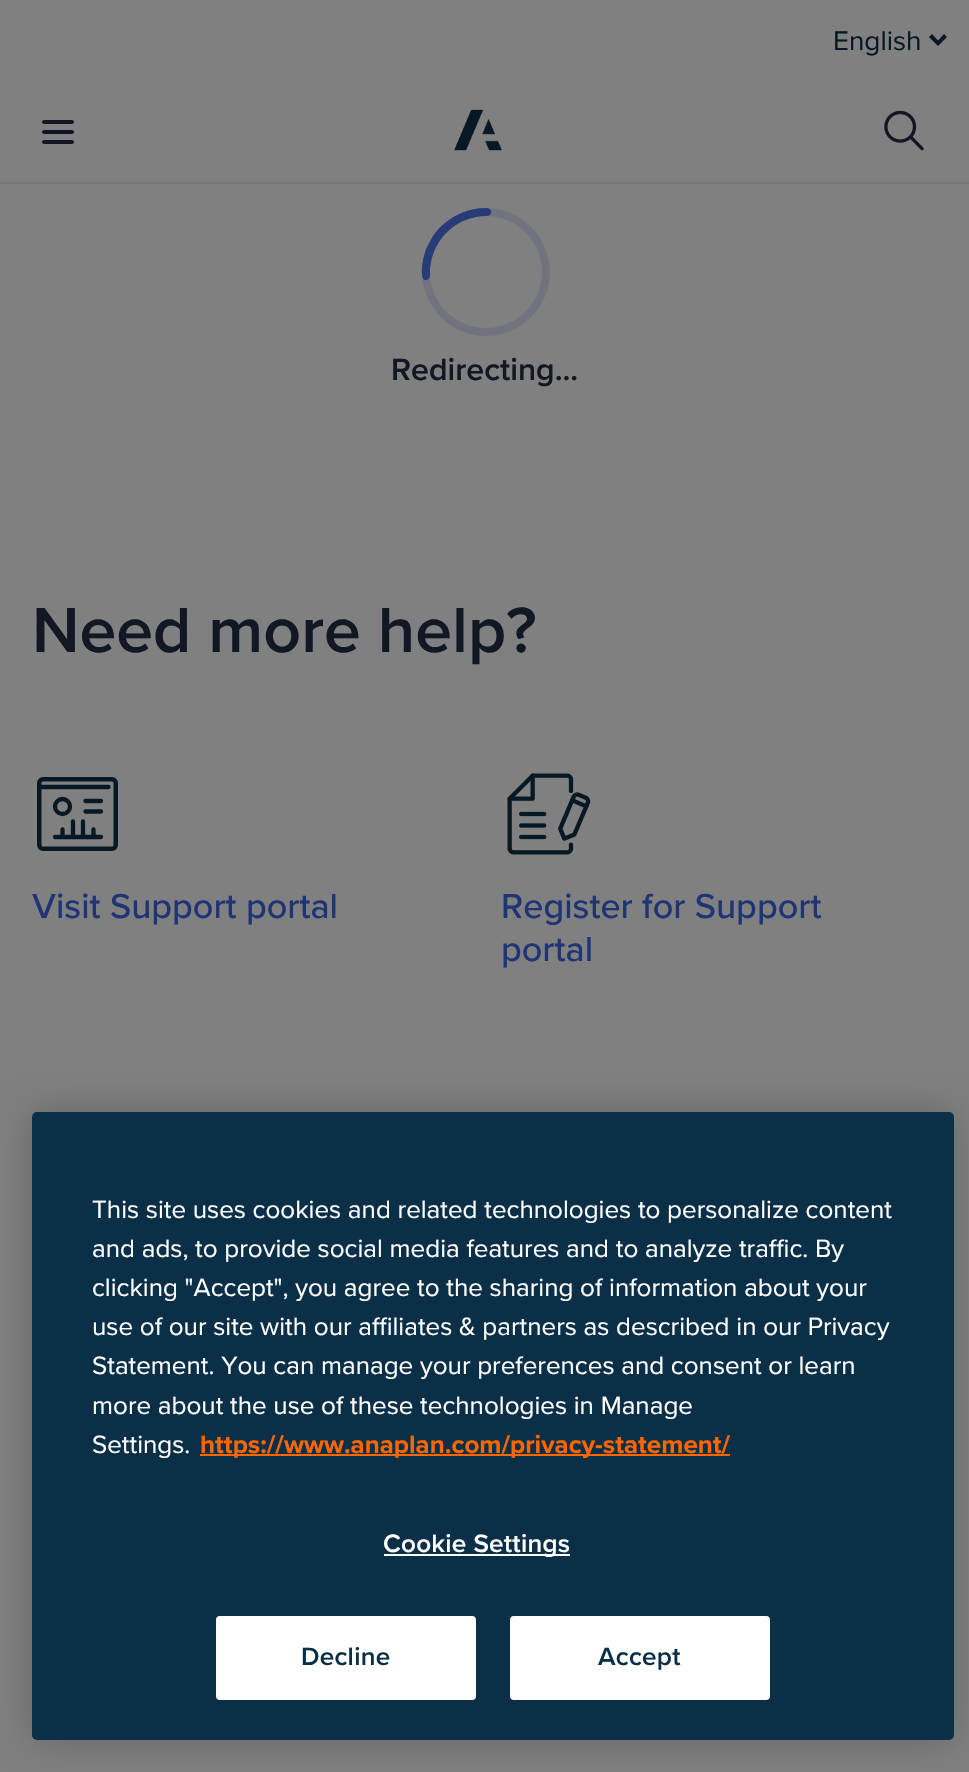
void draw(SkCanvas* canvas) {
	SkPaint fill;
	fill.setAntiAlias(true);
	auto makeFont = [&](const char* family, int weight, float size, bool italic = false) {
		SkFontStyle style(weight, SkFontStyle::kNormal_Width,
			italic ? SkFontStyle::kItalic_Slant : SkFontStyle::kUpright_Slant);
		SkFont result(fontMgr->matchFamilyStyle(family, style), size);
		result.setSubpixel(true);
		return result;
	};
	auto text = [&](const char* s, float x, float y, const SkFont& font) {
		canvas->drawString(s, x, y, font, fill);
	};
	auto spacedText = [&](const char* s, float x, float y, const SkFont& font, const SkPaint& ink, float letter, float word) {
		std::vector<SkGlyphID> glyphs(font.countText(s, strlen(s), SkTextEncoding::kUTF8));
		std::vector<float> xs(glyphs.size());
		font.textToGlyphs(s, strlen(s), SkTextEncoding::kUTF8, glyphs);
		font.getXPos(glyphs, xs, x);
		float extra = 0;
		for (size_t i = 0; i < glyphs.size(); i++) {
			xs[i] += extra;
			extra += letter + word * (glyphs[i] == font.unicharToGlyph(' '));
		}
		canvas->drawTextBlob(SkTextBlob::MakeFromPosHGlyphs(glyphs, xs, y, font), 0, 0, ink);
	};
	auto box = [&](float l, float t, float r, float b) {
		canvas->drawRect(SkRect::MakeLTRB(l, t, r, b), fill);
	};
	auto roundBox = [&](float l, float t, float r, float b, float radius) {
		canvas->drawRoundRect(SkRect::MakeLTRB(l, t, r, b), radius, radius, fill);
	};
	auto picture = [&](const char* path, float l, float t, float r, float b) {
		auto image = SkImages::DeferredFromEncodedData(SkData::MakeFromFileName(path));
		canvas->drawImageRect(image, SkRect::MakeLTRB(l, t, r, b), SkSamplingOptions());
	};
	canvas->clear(0xFF808080);
	fill.setColor(0xFF051823);
	canvas->drawPath(SkPathBuilder(SkPathFillType::kEvenOdd).moveTo(944, 34).lineTo(947, 37).lineTo(938, 46).lineTo(929, 37).lineTo(932, 34).lineTo(938, 40.5f).close().detach(), fill);
	fill.setColor(0xFF73767C);
	box(0, 182, 969, 184);
	picture("image0.png", 42, 120, 74, 144);
	picture("image1.png", 454, 109, 502, 151);
	picture("image2.png", 884, 110, 924, 151);
	fill.setColor(0xFF71747E);
	canvas->drawPath(SkPathBuilder(SkPathFillType::kEvenOdd).moveTo(486, 336).cubicTo(521, 336, 550, 307, 550, 272).cubicTo(550, 237, 521, 208, 486, 208).cubicTo(451, 208, 422, 237, 422, 272).cubicTo(422, 307, 451, 336, 486, 336).close().moveTo(486, 328).cubicTo(517, 328, 542, 303, 542, 272).cubicTo(542, 241, 517, 216, 486, 216).cubicTo(455, 216, 430, 241, 430, 272).cubicTo(430, 303, 455, 328, 486, 328).close().detach(), fill);
	fill.setColor(0x261E3475);
	canvas->drawPath(SkPathBuilder(SkPathFillType::kEvenOdd).moveTo(486, 208).cubicTo(465, 208, 445, 219, 433, 236).lineTo(427, 247).cubicTo(423, 256, 419, 278, 425, 280).cubicTo(428, 281, 430, 277, 430, 275).cubicTo(429, 243, 454, 216, 486, 216).cubicTo(493, 216, 493, 208, 486, 208).close().detach(), fill);
	fill.setColor(0x801E3475);
	canvas->drawPath(SkPathBuilder(SkPathFillType::kEvenOdd).moveTo(486, 208).cubicTo(465, 208, 445, 219, 433, 236).lineTo(427, 247).cubicTo(423, 256, 419, 278, 425, 280).cubicTo(428, 281, 430, 277, 430, 275).cubicTo(429, 243, 454, 216, 486, 216).cubicTo(493, 216, 493, 208, 486, 208).close().detach(), fill);
	fill.setColor(0xBF1E3475);
	canvas->drawPath(SkPathBuilder(SkPathFillType::kEvenOdd).moveTo(486, 208).cubicTo(465, 208, 445, 219, 433, 236).lineTo(427, 247).cubicTo(423, 256, 419, 278, 425, 280).cubicTo(428, 281, 430, 277, 430, 275).cubicTo(429, 243, 454, 216, 486, 216).cubicTo(493, 216, 493, 208, 486, 208).close().detach(), fill);
	fill.setStyle(SkPaint::kStroke_Style);
	fill.setStrokeWidth(4.3f);
	fill.setStrokeCap(SkPaint::kRound_Cap);
	fill.setStrokeJoin(SkPaint::kRound_Join);
	fill.setColor(0xFF051823);
	canvas->drawPath(SkPathBuilder().moveTo(39.5f, 787).lineTo(108.5f, 787).detach(), fill);
	fill.setStrokeWidth(4.5f);
	fill.setStrokeCap(SkPaint::kButt_Cap);
	fill.setStrokeJoin(SkPaint::kMiter_Join);
	canvas->drawRoundRect(SkRect::MakeLTRB(39.25f, 779.25f, 115.75f, 848.75f), 3.75f, 3.75f, fill);
	fill.setStrokeWidth(4.3f);
	canvas->drawCircle(62.5f, 806.5f, 7.5f, fill);
	fill.setStrokeCap(SkPaint::kRound_Cap);
	fill.setStrokeJoin(SkPaint::kRound_Join);
	canvas->drawPath(SkPathBuilder().moveTo(85.5f, 801).lineTo(101, 801).detach(), fill);
	canvas->drawPath(SkPathBuilder().moveTo(85.5f, 811.5f).lineTo(101, 811.5f).moveTo(55, 837).lineTo(101, 837).moveTo(62.5f, 829.5f).lineTo(62.5f, 837).moveTo(73, 821.5f).lineTo(73, 837).moveTo(83, 821.5f).lineTo(83, 837).moveTo(93.5f, 829.5f).lineTo(93.5f, 837).detach(), fill);
	picture("image3.png", 507, 773, 591, 855);
	fill.setStyle(SkPaint::kFill_Style);
	fill.setColor(0x33000000);
	fill.setMaskFilter(SkMaskFilter::MakeBlur(kNormal_SkBlurStyle, 18));
	canvas->drawRoundRect(SkRect::MakeLTRB(32, 1112, 954, 1740), 5, 5, fill);
	fill.setMaskFilter(nullptr);
	fill.setColor(0xFF0A2F46);
	roundBox(32, 1112, 954, 1740, 5);
	fill.setColor(0xFFFF6600);
	box(200, 1454, 730, 1456);
	fill.setColor(0xFFFFFFFF);
	box(384, 1554, 570, 1556);
	canvas->drawRoundRect(SkRect::MakeLTRB(217, 1617, 475, 1699), 3, 3, fill);
	fill.setStyle(SkPaint::kStroke_Style);
	fill.setStrokeWidth(2);
	fill.setStrokeCap(SkPaint::kButt_Cap);
	fill.setStrokeJoin(SkPaint::kMiter_Join);
	canvas->drawRoundRect(SkRect::MakeLTRB(217, 1617, 475, 1699), 3, 3, fill);
	fill.setStyle(SkPaint::kFill_Style);
	canvas->drawRoundRect(SkRect::MakeLTRB(511, 1617, 769, 1699), 3, 3, fill);
	fill.setStyle(SkPaint::kStroke_Style);
	canvas->drawRoundRect(SkRect::MakeLTRB(511, 1617, 769, 1699), 3, 3, fill);
	auto font1 = makeFont("Proxima Nova", 400, 28);
	fill.setStyle(SkPaint::kFill_Style);
	fill.setColor(0xFF051823);
	text("English", 833, 50, font1);
	auto font2 = makeFont("Proxima Nova", 600, 32);
	fill.setColor(0xFF121724);
	text("Redirecting...", 391, 380, font2);
	auto font3 = makeFont("Proxima Nova", 600, 66);
	text("Need more help?", 32, 652, font3);
	auto font4 = makeFont("Proxima Nova", 500, 36);
	fill.setColor(0xFF1E3475);
	text("Visit Support portal", 32, 918, font4);
	text("Register for Support", 501, 918, font4);
	text("portal", 501, 961, font4);
	auto font5 = makeFont("Proxima Nova", 400, 26);
	fill.setColor(0xFFFFFFFF);
	text("This site uses cookies and related technologies to personalize content", 92, 1218, font5);
	text("and ads, to provide social media features and to analyze traffic. By", 92, 1257, font5);
	text("clicking \"Accept\", you agree to the sharing of information about your", 92, 1296, font5);
	text("use of our site with our affiliates & partners as described in our Privacy", 92, 1335, font5);
	text("Statement. You can manage your preferences and consent or learn", 92, 1374, font5);
	text("more about the use of these technologies in Manage", 92, 1414, font5);
	text("Settings.", 92, 1453, font5);
	auto font6 = makeFont("Proxima Nova", 700, 26);
	fill.setColor(0xFFFF6600);
	text("https://www.anaplan.com/privacy-statement/", 200, 1453, font6);
	auto font7 = makeFont("Proxima Nova", 600, 26);
	fill.setColor(0xFFFFFFFF);
	spacedText("Cookie Settings", 383, 1552, font7, fill, 0.25f, 0);
	fill.setColor(0xFF0A2F46);
	spacedText("Decline", 301, 1665, font7, fill, 0.25f, 0);
	spacedText("Accept", 598, 1665, font7, fill, 0.25f, 0);
}
